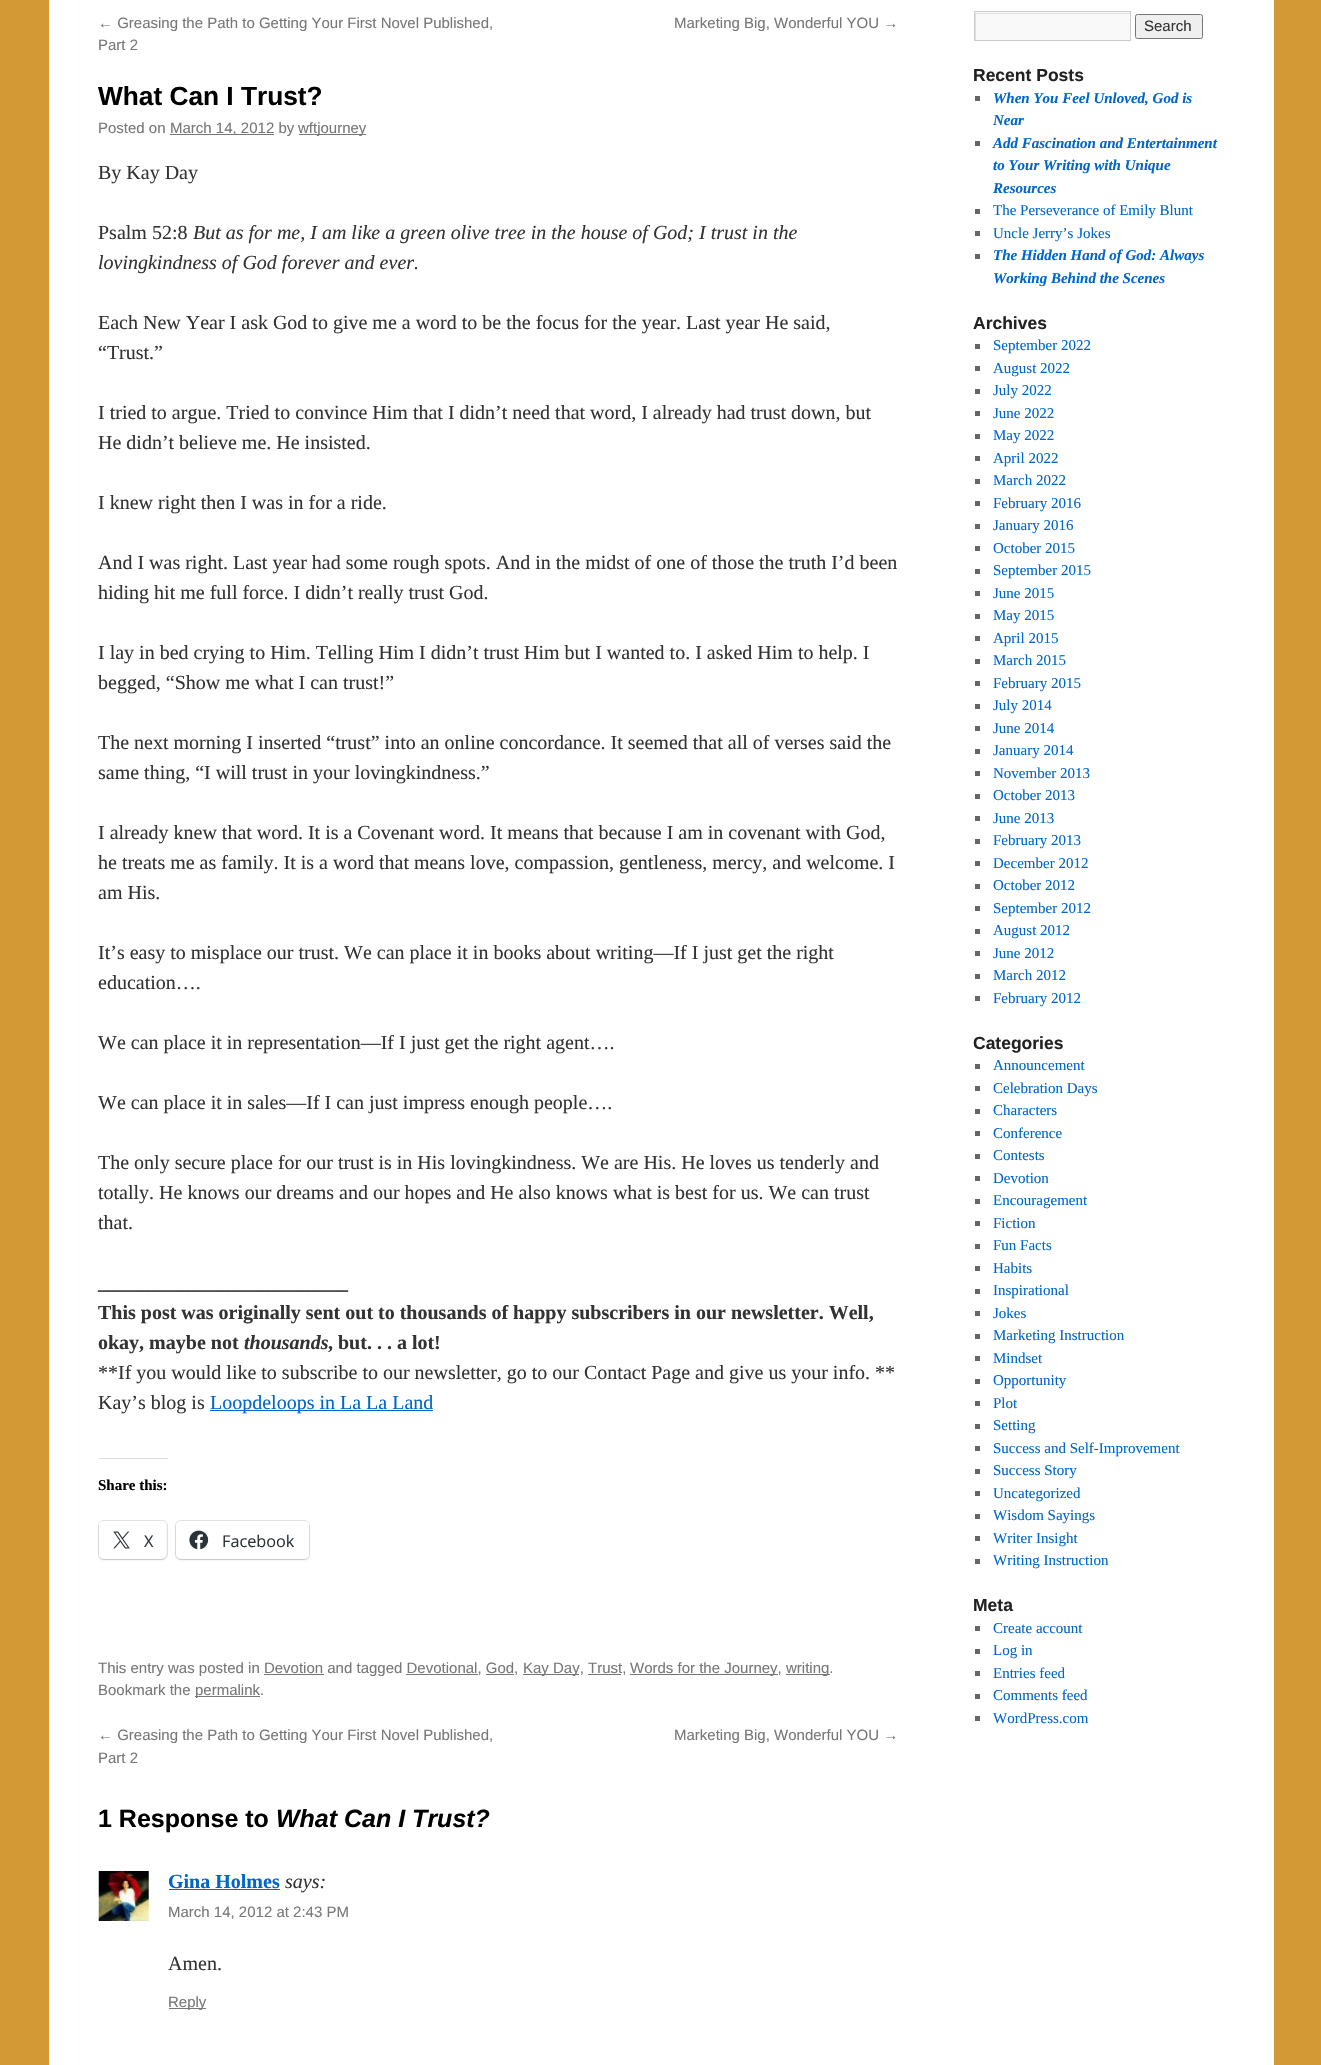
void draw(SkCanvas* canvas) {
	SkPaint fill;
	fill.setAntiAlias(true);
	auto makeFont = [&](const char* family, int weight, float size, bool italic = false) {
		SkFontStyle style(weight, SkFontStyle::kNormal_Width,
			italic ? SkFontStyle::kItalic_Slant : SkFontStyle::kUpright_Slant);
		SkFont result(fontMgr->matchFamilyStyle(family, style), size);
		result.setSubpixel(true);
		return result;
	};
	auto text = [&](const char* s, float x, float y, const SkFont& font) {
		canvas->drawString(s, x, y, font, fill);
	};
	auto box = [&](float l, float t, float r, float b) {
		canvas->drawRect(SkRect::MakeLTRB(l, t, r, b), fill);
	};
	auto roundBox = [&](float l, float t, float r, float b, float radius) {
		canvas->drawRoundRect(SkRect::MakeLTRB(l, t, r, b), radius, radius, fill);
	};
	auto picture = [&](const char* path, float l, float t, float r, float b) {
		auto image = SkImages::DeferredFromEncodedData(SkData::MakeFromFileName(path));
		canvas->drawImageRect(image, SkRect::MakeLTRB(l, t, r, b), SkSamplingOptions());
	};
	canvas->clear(0xFFD29934);
	fill.setColor(0xFFFFFFFF);
	box(49, 0, 1274, 2065);
	fill.setColor(0xFF777777);
	box(170, 134, 274, 135);
	box(299, 134, 366, 135);
	fill.setColor(0xFF0066CC);
	box(210, 1410, 433, 1411);
	fill.setColor(0xFFDCDCDE);
	box(99, 1458, 168, 1459);
	fill.setStyle(SkPaint::kStroke_Style);
	fill.setStrokeWidth(1);
	fill.setColor(0xFFE0E0E0);
	canvas->drawRoundRect(SkRect::MakeLTRB(98.5f, 1520.5f, 167.5f, 1559.5f), 5.5f, 5.5f, fill);
	fill.setStyle(SkPaint::kFill_Style);
	fill.setColor(0x1F000000);
	fill.setMaskFilter(SkMaskFilter::MakeBlur(kNormal_SkBlurStyle, 1));
	canvas->drawRoundRect(SkRect::MakeLTRB(99, 1523, 166, 1560), 5, 5, fill);
	fill.setMaskFilter(nullptr);
	fill.setColor(0xFFFFFFFF);
	roundBox(99, 1521, 166, 1559, 5);
	picture("image0.png", 113, 1531, 130, 1549);
	fill.setStyle(SkPaint::kStroke_Style);
	fill.setColor(0xFFE0E0E0);
	canvas->drawRoundRect(SkRect::MakeLTRB(175.5f, 1520.5f, 309.5f, 1559.5f), 5.5f, 5.5f, fill);
	fill.setStyle(SkPaint::kFill_Style);
	fill.setColor(0x1F000000);
	fill.setMaskFilter(SkMaskFilter::MakeBlur(kNormal_SkBlurStyle, 1));
	canvas->drawRoundRect(SkRect::MakeLTRB(176, 1523, 309, 1560), 5, 5, fill);
	fill.setMaskFilter(nullptr);
	fill.setColor(0xFFFFFFFF);
	roundBox(176, 1521, 309, 1559, 5);
	picture("image1.png", 189, 1530, 209, 1550);
	fill.setColor(0xFF777777);
	box(523, 1674, 579, 1675);
	box(630, 1674, 778, 1675);
	box(786, 1674, 830, 1675);
	box(264, 1674, 324, 1675);
	box(406, 1674, 478, 1675);
	box(486, 1674, 514, 1675);
	box(588, 1674, 621, 1675);
	box(195, 1696, 260, 1697);
	picture("image2.png", 98, 1871, 149, 1921);
	fill.setColor(0xFF0066CC);
	box(169, 1889, 280, 1890);
	fill.setColor(0xFF777777);
	box(169, 2008, 206, 2009);
	fill.setColor(0xFFF9F9F9);
	box(975, 12, 1130, 40);
	canvas->save();
	canvas->clipRect(SkRect::MakeLTRB(975, 13, 1130, 40));
	fill.setColor(0xFFE0E0E0);
	canvas->drawPath(SkPathBuilder(SkPathFillType::kEvenOdd).moveTo(851, -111).lineTo(1254, -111).lineTo(1254, 164).lineTo(851, 164).close().moveTo(976, 14).lineTo(1131, 14).lineTo(1131, 41).lineTo(976, 41).close().detach(), fill);
	canvas->restore();
	fill.setStyle(SkPaint::kStroke_Style);
	fill.setColor(0xFFCCCCCC);
	canvas->drawRect(SkRect::MakeLTRB(974.5f, 11.5f, 1130.5f, 40.5f), fill);
	fill.setStyle(SkPaint::kFill_Style);
	fill.setColor(0xFFEFEFEF);
	canvas->drawRoundRect(SkRect::MakeLTRB(1135.5f, 14.5f, 1202.5f, 38.5f), 2, 2, fill);
	fill.setStyle(SkPaint::kStroke_Style);
	fill.setColor(0xFF767676);
	canvas->drawRoundRect(SkRect::MakeLTRB(1135.5f, 14.5f, 1202.5f, 38.5f), 2, 2, fill);
	fill.setStyle(SkPaint::kFill_Style);
	fill.setColor(0xFF666666);
	box(975, 96, 980, 101);
	box(975, 141, 980, 146);
	box(975, 209, 980, 214);
	box(975, 231, 980, 236);
	box(975, 254, 980, 259);
	box(975, 344, 980, 349);
	box(975, 366, 980, 371);
	box(975, 389, 980, 394);
	box(975, 411, 980, 416);
	box(975, 434, 980, 439);
	box(975, 456, 980, 461);
	box(975, 479, 980, 484);
	box(975, 501, 980, 506);
	box(975, 524, 980, 529);
	box(975, 546, 980, 551);
	box(975, 569, 980, 574);
	box(975, 591, 980, 596);
	box(975, 614, 980, 619);
	box(975, 636, 980, 641);
	box(975, 659, 980, 664);
	box(975, 681, 980, 686);
	box(975, 704, 980, 709);
	box(975, 726, 980, 731);
	box(975, 749, 980, 754);
	box(975, 771, 980, 776);
	box(975, 794, 980, 799);
	box(975, 816, 980, 821);
	box(975, 839, 980, 844);
	box(975, 861, 980, 866);
	box(975, 884, 980, 889);
	box(975, 906, 980, 911);
	box(975, 929, 980, 934);
	box(975, 951, 980, 956);
	box(975, 974, 980, 979);
	box(975, 996, 980, 1001);
	box(975, 1064, 980, 1069);
	box(975, 1086, 980, 1091);
	box(975, 1109, 980, 1114);
	box(975, 1131, 980, 1136);
	box(975, 1154, 980, 1159);
	box(975, 1176, 980, 1181);
	box(975, 1199, 980, 1204);
	box(975, 1221, 980, 1226);
	box(975, 1244, 980, 1249);
	box(975, 1266, 980, 1271);
	box(975, 1289, 980, 1294);
	box(975, 1311, 980, 1316);
	box(975, 1334, 980, 1339);
	box(975, 1356, 980, 1361);
	box(975, 1379, 980, 1384);
	box(975, 1401, 980, 1406);
	box(975, 1424, 980, 1429);
	box(975, 1446, 980, 1451);
	box(975, 1469, 980, 1474);
	box(975, 1491, 980, 1496);
	box(975, 1514, 980, 1519);
	box(975, 1536, 980, 1541);
	box(975, 1559, 980, 1564);
	box(975, 1626, 980, 1631);
	box(975, 1649, 980, 1654);
	box(975, 1671, 980, 1676);
	box(975, 1694, 980, 1699);
	box(975, 1716, 980, 1721);
	auto font1 = makeFont("Liberation Sans", 400, 15);
	fill.setColor(0xFF777777);
	text("← Greasing the Path to Getting Your First Novel Published,", 98, 28, font1);
	text("Part 2", 98, 50, font1);
	text("Marketing Big, Wonderful YOU →", 674, 28, font1);
	auto font2 = makeFont("Liberation Sans", 700, 26.25f);
	fill.setColor(0xFF000000);
	text("What Can I Trust?", 98, 105, font2);
	fill.setColor(0xFF777777);
	text("Posted on", 98, 133, font1);
	text("March 14, 2012 by", 170, 133, font1);
	text("wftjourney", 298, 133, font1);
	auto font3 = makeFont("Liberation Serif", 400, 20);
	fill.setColor(0xFF333333);
	text("By Kay Day", 98, 179, font3);
	text("Psalm 52:8", 98, 239, font3);
	auto font4 = makeFont("Liberation Serif", 400, 20, true);
	text("But as for me, I am like a green olive tree in the house of God; I trust in the", 193, 239, font4);
	text("lovingkindness of God forever and ever.", 98, 269, font4);
	text("Each New Year I ask God to give me a word to be the focus for the year. Last year He said,", 98, 329, font3);
	text("“Trust.”", 98, 359, font3);
	text("I tried to argue. Tried to convince Him that I didn’t need that word, I already had trust down, but", 98, 419, font3);
	text("He didn’t believe me. He insisted.", 98, 449, font3);
	text("I knew right then I was in for a ride.", 98, 509, font3);
	text("And I was right. Last year had some rough spots. And in the midst of one of those the truth I’d been", 98, 569, font3);
	text("hiding hit me full force. I didn’t really trust God.", 98, 599, font3);
	text("I lay in bed crying to Him. Telling Him I didn’t trust Him but I wanted to. I asked Him to help. I", 98, 659, font3);
	text("begged, “Show me what I can trust!”", 98, 689, font3);
	text("The next morning I inserted “trust” into an online concordance. It seemed that all of verses said the", 98, 749, font3);
	text("same thing, “I will trust in your lovingkindness.”", 98, 779, font3);
	text("I already knew that word. It is a Covenant word. It means that because I am in covenant with God,", 98, 839, font3);
	text("he treats me as family. It is a word that means love, compassion, gentleness, mercy, and welcome. I", 98, 869, font3);
	text("am His.", 98, 899, font3);
	text("It’s easy to misplace our trust. We can place it in books about writing—If I just get the right", 98, 959, font3);
	text("education….", 98, 989, font3);
	text("We can place it in representation—If I just get the right agent….", 98, 1049, font3);
	text("We can place it in sales—If I can just impress enough people….", 98, 1109, font3);
	text("The only secure place for our trust is in His lovingkindness. We are His. He loves us tenderly and", 98, 1169, font3);
	text("totally. He knows our dreams and our hopes and He also knows what is best for us. We can trust", 98, 1199, font3);
	text("that.", 98, 1229, font3);
	auto font5 = makeFont("Liberation Serif", 700, 20);
	text("_________________________", 98, 1289, font5);
	text("This post was originally sent out to thousands of happy subscribers in our newsletter. Well,", 98, 1319, font5);
	text("okay, maybe not", 98, 1349, font5);
	auto font6 = makeFont("Liberation Serif", 700, 20, true);
	text("thousands", 244, 1349, font6);
	text(", but. . . a lot!", 328, 1349, font5);
	text("**If you would like to subscribe to our newsletter, go to our Contact Page and give us your info. **", 98, 1379, font3);
	text("Kay’s blog is", 98, 1409, font3);
	fill.setColor(0xFF0066CC);
	text("Loopdeloops in La La Land", 210, 1409, font3);
	auto font7 = makeFont("Liberation Serif", 700, 15);
	fill.setColor(0xFF000000);
	text("Share this:", 98, 1490, font7);
	auto font8 = makeFont("Open Sans", 400, 16.25f);
	fill.setColor(0xFF2C3338);
	text("X", 144, 1547, font8);
	text("Facebook", 222, 1547, font8);
	fill.setColor(0xFF777777);
	text("This entry was posted in Devotion and tagged Devotional, God,", 98, 1673, font1);
	text("Kay Day, Trust,", 523, 1673, font1);
	text("Words for the Journey,", 630, 1673, font1);
	text("writing.", 786, 1673, font1);
	text("Bookmark the", 98, 1695, font1);
	text("permalink.", 195, 1695, font1);
	text("← Greasing the Path to Getting Your First Novel Published,", 98, 1740, font1);
	text("Part 2", 98, 1763, font1);
	text("Marketing Big, Wonderful YOU →", 674, 1740, font1);
	auto font9 = makeFont("Liberation Sans", 700, 25);
	fill.setColor(0xFF000000);
	text("1 Response to", 98, 1827, font9);
	auto font10 = makeFont("Liberation Sans", 700, 25, true);
	text("What Can I Trust?", 276, 1827, font10);
	fill.setColor(0xFF0066CC);
	text("Gina Holmes", 168, 1888, font5);
	fill.setColor(0xFF333333);
	text("says:", 285, 1888, font4);
	fill.setColor(0xFF777777);
	text("March 14, 2012 at 2:43 PM", 168, 1917, font1);
	fill.setColor(0xFF333333);
	text("Amen.", 168, 1970, font3);
	fill.setColor(0xFF777777);
	text("Reply", 168, 2007, font1);
	fill.setColor(0xFF333333);
	text("Search", 1144, 31, font1);
	auto font11 = makeFont("Liberation Sans", 700, 17.5f);
	fill.setColor(0xFF222222);
	text("Recent Posts", 973, 81, font11);
	auto font12 = makeFont("Liberation Serif", 700, 15, true);
	fill.setColor(0xFF0066CC);
	text("When You Feel Unloved, God is", 993, 103, font12);
	text("Near", 993, 125, font12);
	text("Add Fascination and Entertainment", 993, 148, font12);
	text("to Your Writing with Unique", 993, 170, font12);
	text("Resources", 993, 193, font12);
	auto font13 = makeFont("Liberation Serif", 400, 15);
	text("The Perseverance of Emily Blunt", 993, 215, font13);
	text("Uncle Jerry’s Jokes", 993, 238, font13);
	text("The Hidden Hand of God: Always", 993, 260, font12);
	text("Working Behind the Scenes", 993, 283, font12);
	fill.setColor(0xFF222222);
	text("Archives", 973, 329, font11);
	fill.setColor(0xFF0066CC);
	text("September 2022", 993, 350, font13);
	text("August 2022", 993, 373, font13);
	text("July 2022", 993, 395, font13);
	text("June 2022", 993, 418, font13);
	text("May 2022", 993, 440, font13);
	text("April 2022", 993, 463, font13);
	text("March 2022", 993, 485, font13);
	text("February 2016", 993, 508, font13);
	text("January 2016", 993, 530, font13);
	text("October 2015", 993, 553, font13);
	text("September 2015", 993, 575, font13);
	text("June 2015", 993, 598, font13);
	text("May 2015", 993, 620, font13);
	text("April 2015", 993, 643, font13);
	text("March 2015", 993, 665, font13);
	text("February 2015", 993, 688, font13);
	text("July 2014", 993, 710, font13);
	text("June 2014", 993, 733, font13);
	text("January 2014", 993, 755, font13);
	text("November 2013", 993, 778, font13);
	text("October 2013", 993, 800, font13);
	text("June 2013", 993, 823, font13);
	text("February 2013", 993, 845, font13);
	text("December 2012", 993, 868, font13);
	text("October 2012", 993, 890, font13);
	text("September 2012", 993, 913, font13);
	text("August 2012", 993, 935, font13);
	text("June 2012", 993, 958, font13);
	text("March 2012", 993, 980, font13);
	text("February 2012", 993, 1003, font13);
	fill.setColor(0xFF222222);
	text("Categories", 973, 1049, font11);
	fill.setColor(0xFF0066CC);
	text("Announcement", 993, 1070, font13);
	text("Celebration Days", 993, 1093, font13);
	text("Characters", 993, 1115, font13);
	text("Conference", 993, 1138, font13);
	text("Contests", 993, 1160, font13);
	text("Devotion", 993, 1183, font13);
	text("Encouragement", 993, 1205, font13);
	text("Fiction", 993, 1228, font13);
	text("Fun Facts", 993, 1250, font13);
	text("Habits", 993, 1273, font13);
	text("Inspirational", 993, 1295, font13);
	text("Jokes", 993, 1318, font13);
	text("Marketing Instruction", 993, 1340, font13);
	text("Mindset", 993, 1363, font13);
	text("Opportunity", 993, 1385, font13);
	text("Plot", 993, 1408, font13);
	text("Setting", 993, 1430, font13);
	text("Success and Self-Improvement", 993, 1453, font13);
	text("Success Story", 993, 1475, font13);
	text("Uncategorized", 993, 1498, font13);
	text("Wisdom Sayings", 993, 1520, font13);
	text("Writer Insight", 993, 1543, font13);
	text("Writing Instruction", 993, 1565, font13);
	fill.setColor(0xFF222222);
	text("Meta", 973, 1611, font11);
	fill.setColor(0xFF0066CC);
	text("Create account", 993, 1633, font13);
	text("Log in", 993, 1655, font13);
	text("Entries feed", 993, 1678, font13);
	text("Comments feed", 993, 1700, font13);
	text("WordPress.com", 993, 1723, font13);
}
